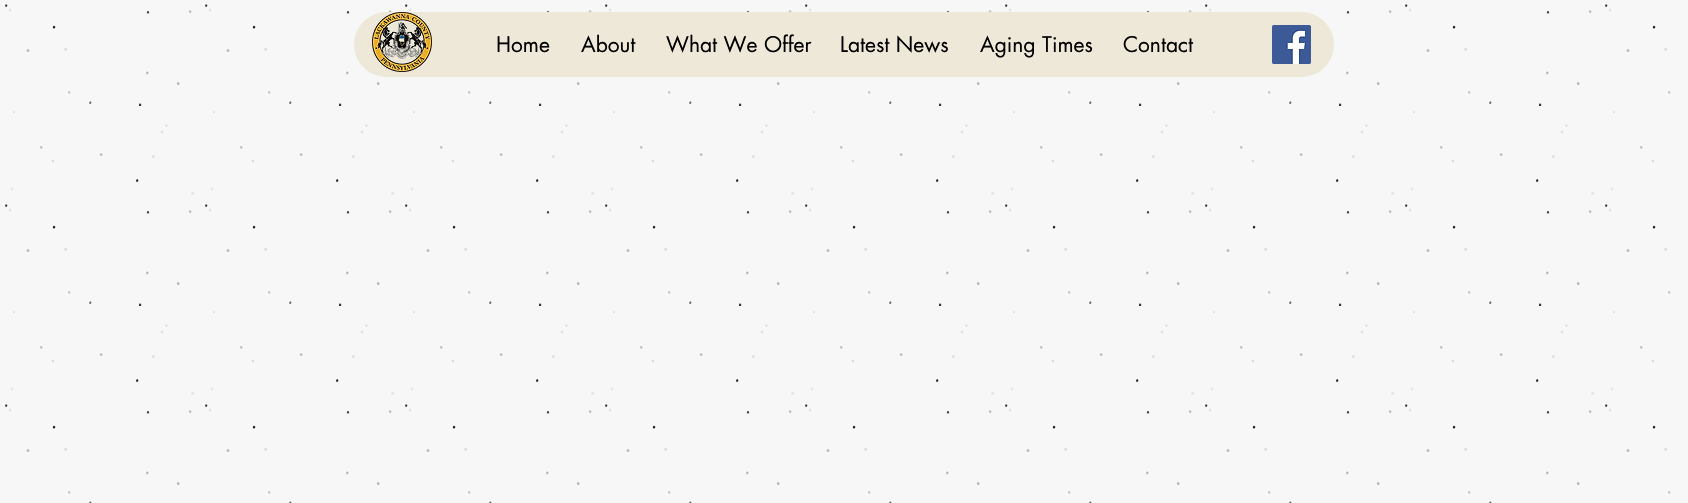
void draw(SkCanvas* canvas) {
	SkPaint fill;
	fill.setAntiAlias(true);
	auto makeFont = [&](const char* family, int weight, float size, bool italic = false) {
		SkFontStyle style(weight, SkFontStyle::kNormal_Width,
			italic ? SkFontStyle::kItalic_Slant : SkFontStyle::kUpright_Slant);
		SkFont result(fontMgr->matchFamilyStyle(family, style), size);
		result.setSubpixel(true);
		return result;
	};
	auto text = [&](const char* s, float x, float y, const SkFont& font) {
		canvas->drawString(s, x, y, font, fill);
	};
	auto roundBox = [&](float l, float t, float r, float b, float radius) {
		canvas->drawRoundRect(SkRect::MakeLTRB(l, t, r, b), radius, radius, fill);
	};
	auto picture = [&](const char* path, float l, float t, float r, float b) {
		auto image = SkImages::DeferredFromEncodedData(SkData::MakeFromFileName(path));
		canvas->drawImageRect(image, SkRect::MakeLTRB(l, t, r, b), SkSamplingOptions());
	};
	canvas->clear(0xFFF7F7F7);
	picture("image0.png", 5, 4, 1671, 503);
	fill.setColor(0xFFEEE8D8);
	roundBox(354, 12, 1334, 77, 32.5f);
	picture("image1.png", 372, 12, 432, 72);
	picture("image2.png", 1272, 25, 1311, 64);
	auto font1 = makeFont("futura", 400, 21);
	fill.setColor(0xFF000000);
	text("Home", 496, 52, font1);
	text("About", 581, 52, font1);
	text("What We Offer", 666, 52, font1);
	text("Latest News", 840, 52, font1);
	text("Aging Times", 980, 52, font1);
	text("Contact", 1123, 52, font1);
}
